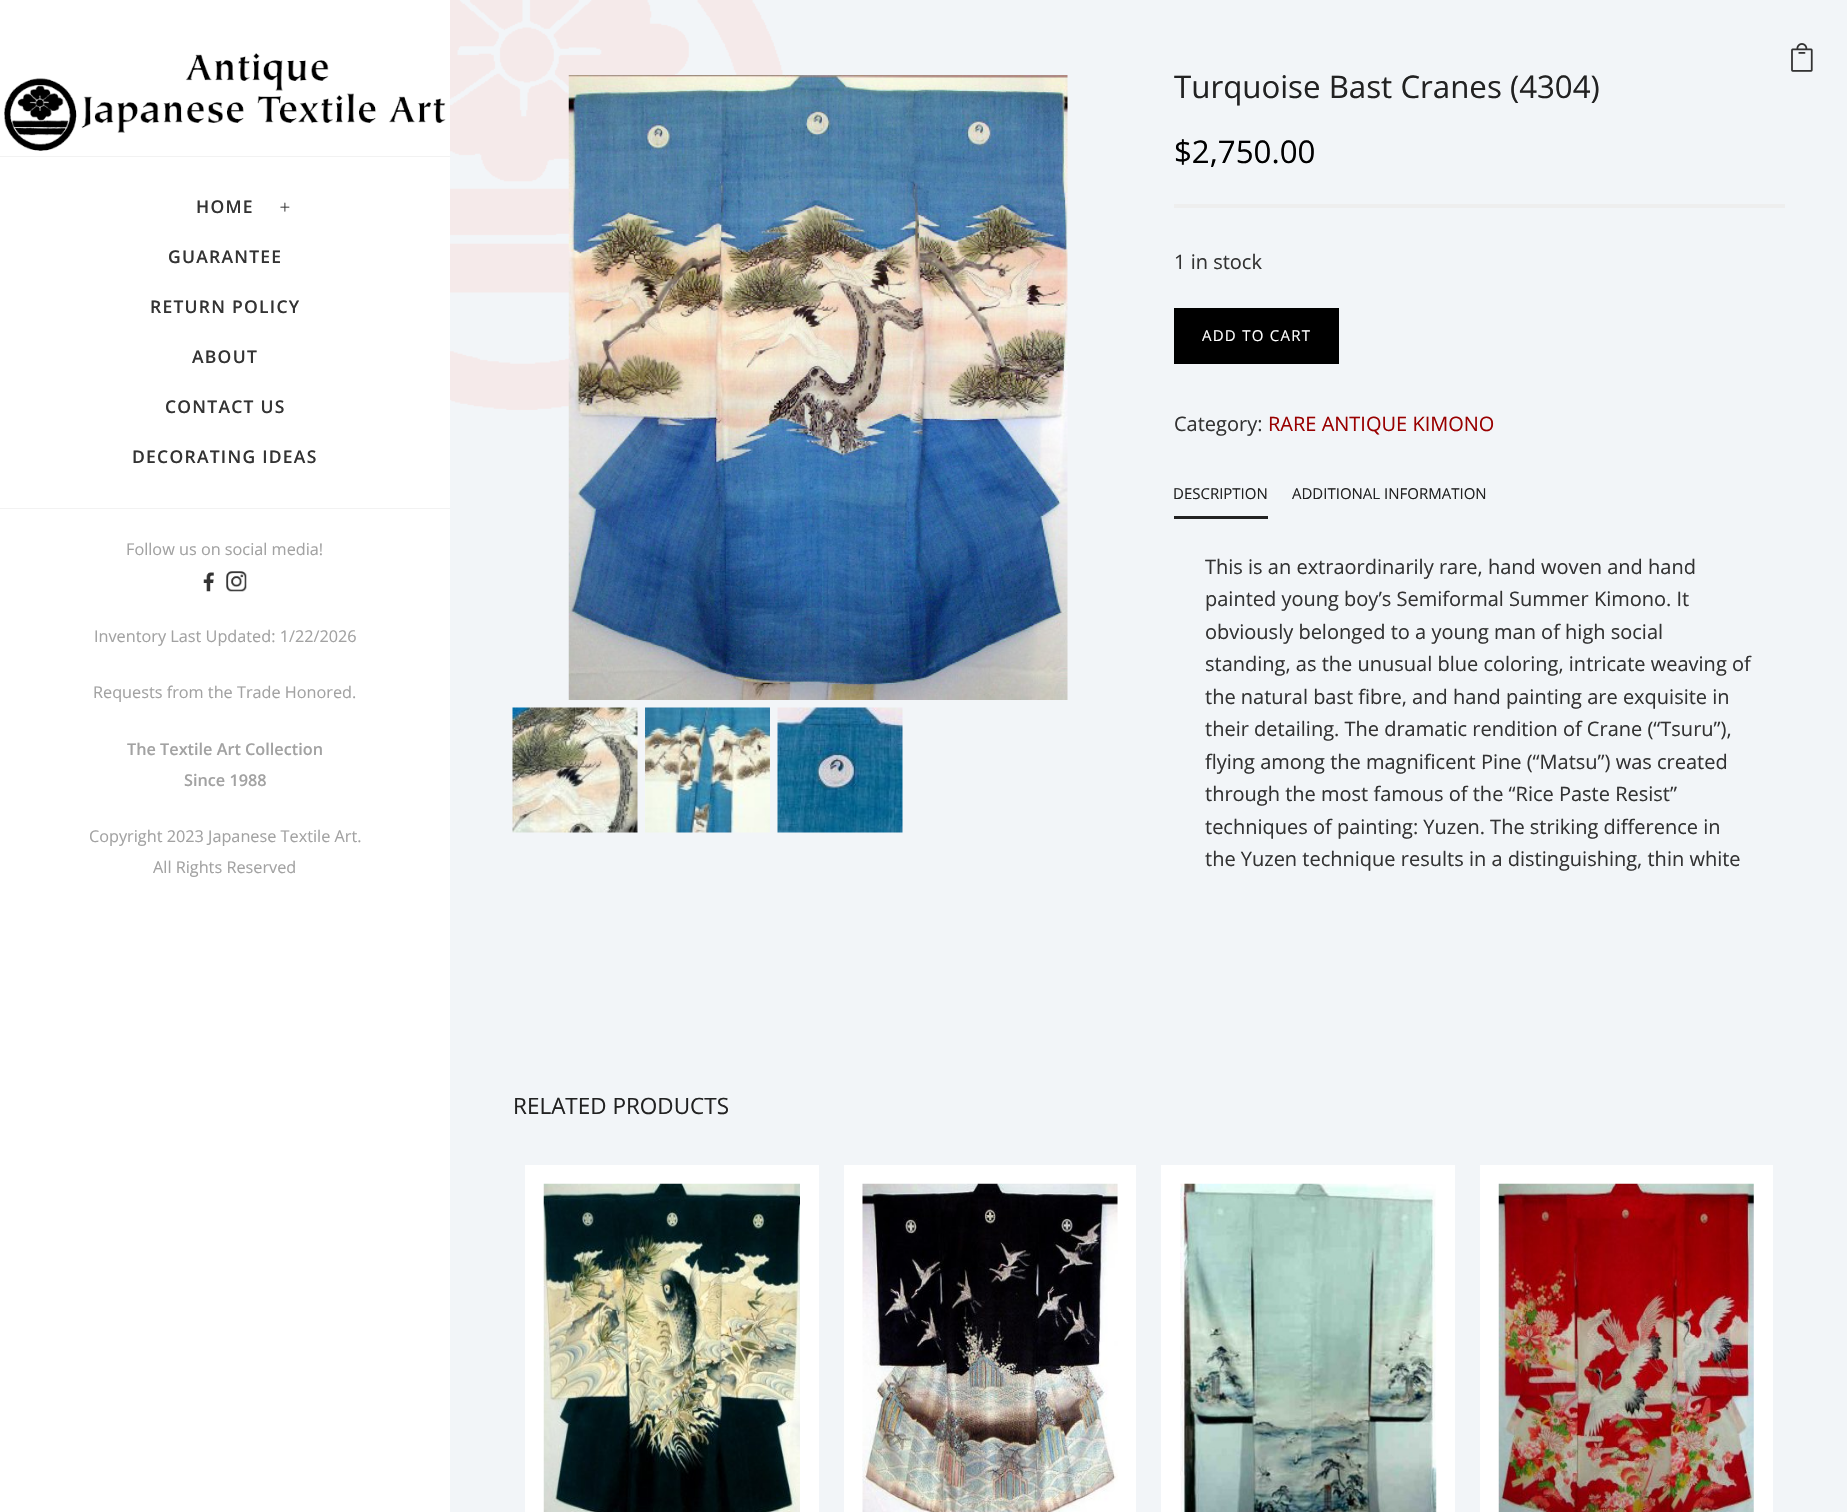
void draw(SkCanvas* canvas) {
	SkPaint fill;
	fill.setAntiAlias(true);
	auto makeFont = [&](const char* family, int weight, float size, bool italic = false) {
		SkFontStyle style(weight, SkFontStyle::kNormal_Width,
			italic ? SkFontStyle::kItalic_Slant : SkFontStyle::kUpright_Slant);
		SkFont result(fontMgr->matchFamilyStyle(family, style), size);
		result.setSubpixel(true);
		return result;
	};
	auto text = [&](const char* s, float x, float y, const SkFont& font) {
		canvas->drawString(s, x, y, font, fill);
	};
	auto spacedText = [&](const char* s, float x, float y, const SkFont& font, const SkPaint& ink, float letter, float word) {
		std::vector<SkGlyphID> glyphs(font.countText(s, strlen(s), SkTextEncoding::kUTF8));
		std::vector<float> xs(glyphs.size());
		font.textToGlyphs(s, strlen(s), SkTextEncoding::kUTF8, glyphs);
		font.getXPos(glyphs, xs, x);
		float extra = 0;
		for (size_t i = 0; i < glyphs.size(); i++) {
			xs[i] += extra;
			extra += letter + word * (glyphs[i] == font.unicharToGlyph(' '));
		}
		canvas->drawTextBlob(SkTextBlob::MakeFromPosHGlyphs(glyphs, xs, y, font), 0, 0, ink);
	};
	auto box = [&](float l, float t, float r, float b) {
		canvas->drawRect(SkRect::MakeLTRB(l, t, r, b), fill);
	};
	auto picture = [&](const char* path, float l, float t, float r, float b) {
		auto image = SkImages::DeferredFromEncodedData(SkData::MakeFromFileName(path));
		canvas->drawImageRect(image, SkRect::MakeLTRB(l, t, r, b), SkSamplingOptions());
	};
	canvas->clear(0xFFFFFFFF);
	picture("image0.png", 4, 53, 446, 151);
	fill.setColor(0xFFF2F2F2);
	box(0, 156, 450, 157);
	box(0, 508, 450, 509);
	picture("image1.png", 280, 202, 290, 212);
	picture("image2.png", 203, 572, 214, 592);
	picture("image3.png", 226, 571, 247, 592);
	fill.setColor(0xFFF2F5F8);
	box(450, 0, 1847, 1512);
	picture("image4.png", 1791, 43, 1813, 72);
	picture("image5.png", 450, 0, 784, 410);
	picture("image6.png", 568, 75, 1068, 700);
	picture("image7.png", 512, 707, 638, 833);
	picture("image8.png", 645, 707, 770, 833);
	picture("image9.png", 777, 707, 903, 833);
	fill.setColor(0xFFEEEEEE);
	box(1174, 204, 1785, 208);
	fill.setColor(0xFF000000);
	box(1174, 308, 1339, 364);
	fill.setColor(0xFF222222);
	box(1174, 516, 1268, 519);
	fill.setColor(0xFFFFFFFF);
	box(525, 1165, 819, 1512);
	picture("image10.png", 543, 1183, 800, 1512);
	box(844, 1165, 1136, 1512);
	picture("image11.png", 862, 1183, 1118, 1512);
	box(1161, 1165, 1455, 1512);
	picture("image12.png", 1180, 1183, 1437, 1512);
	box(1480, 1165, 1773, 1512);
	picture("image13.png", 1498, 1183, 1754, 1512);
	auto font1 = makeFont("Open Sans", 600, 17.5f);
	fill.setColor(0xFF333333);
	spacedText("HOME", 196, 213, font1, fill, 1.25f, 0);
	spacedText("GUARANTEE", 168, 263, font1, fill, 1.25f, 0);
	spacedText("RETURN POLICY", 150, 313, font1, fill, 1.25f, 0);
	spacedText("ABOUT", 192, 363, font1, fill, 1.25f, 0);
	spacedText("CONTACT US", 165, 413, font1, fill, 1.25f, 0);
	spacedText("DECORATING IDEAS", 132, 463, font1, fill, 1.25f, 0);
	auto font2 = makeFont("Open Sans", 400, 16.25f);
	fill.setColor(0xFFA2A2A2);
	text("Follow us on social media!", 126, 555, font2);
	text("Inventory Last Updated: 1/22/2026", 94, 642, font2);
	text("Requests from the Trade Honored.", 93, 698, font2);
	auto font3 = makeFont("Open Sans", 600, 16.25f);
	text("The Textile Art Collection", 127, 755, font3);
	text("Since 1988", 184, 786, font3);
	text("Copyright 2023 Japanese Textile Art.", 89, 842, font2);
	text("All Rights Reserved", 153, 873, font2);
	auto font4 = makeFont("Open Sans", 400, 31.25f);
	fill.setColor(0xFF222222);
	text("Turquoise Bast Cranes (4304)", 1174, 98, font4);
	fill.setColor(0xFF000000);
	text("$2,750.00", 1174, 163, font4);
	auto font5 = makeFont("Open Sans", 400, 20);
	fill.setColor(0xFF333333);
	text("1 in stock", 1174, 269, font5);
	auto font6 = makeFont("Open Sans", 400, 15);
	fill.setColor(0xFFFFFFFF);
	spacedText("ADD TO CART", 1202, 341, font6, fill, 1.25f, 0);
	fill.setColor(0xFF333333);
	text("Category:", 1174, 431, font5);
	fill.setColor(0xFF990000);
	text("RARE ANTIQUE KIMONO", 1268, 431, font5);
	fill.setColor(0xFF222222);
	text("DESCRIPTION", 1173, 499, font6);
	text("ADDITIONAL INFORMATION", 1292, 499, font6);
	fill.setColor(0xFF333333);
	text("This is an extraordinarily rare, hand woven and hand", 1205, 574, font5);
	text("painted young boy’s Semiformal Summer Kimono. It", 1205, 606, font5);
	text("obviously belonged to a young man of high social", 1205, 639, font5);
	text("standing, as the unusual blue coloring, intricate weaving of", 1205, 671, font5);
	text("the natural bast fibre, and hand painting are exquisite in", 1205, 704, font5);
	text("their detailing. The dramatic rendition of Crane (“Tsuru”),", 1205, 736, font5);
	text("flying among the magnificent Pine (“Matsu”) was created", 1205, 769, font5);
	text("through the most famous of the “Rice Paste Resist”", 1205, 801, font5);
	text("techniques of painting: Yuzen. The striking difference in", 1205, 834, font5);
	text("the Yuzen technique results in a distinguishing, thin white", 1205, 866, font5);
	auto font7 = makeFont("Open Sans", 400, 22.5f);
	fill.setColor(0xFF222222);
	text("RELATED PRODUCTS", 513, 1114, font7);
}
